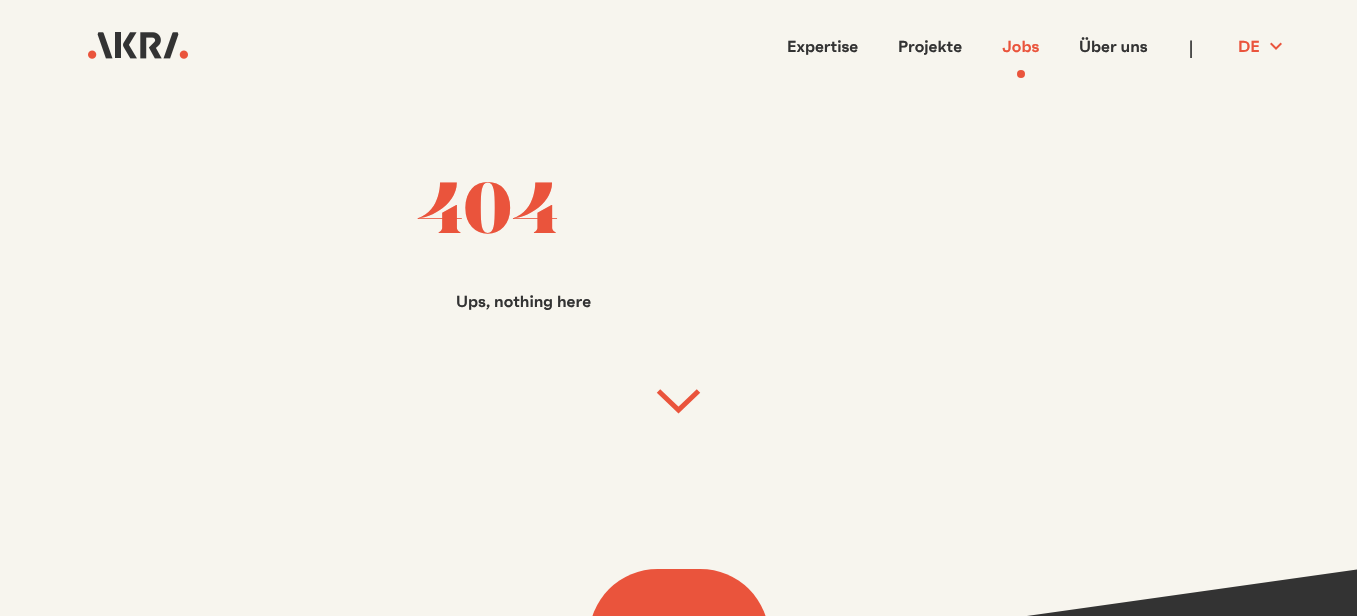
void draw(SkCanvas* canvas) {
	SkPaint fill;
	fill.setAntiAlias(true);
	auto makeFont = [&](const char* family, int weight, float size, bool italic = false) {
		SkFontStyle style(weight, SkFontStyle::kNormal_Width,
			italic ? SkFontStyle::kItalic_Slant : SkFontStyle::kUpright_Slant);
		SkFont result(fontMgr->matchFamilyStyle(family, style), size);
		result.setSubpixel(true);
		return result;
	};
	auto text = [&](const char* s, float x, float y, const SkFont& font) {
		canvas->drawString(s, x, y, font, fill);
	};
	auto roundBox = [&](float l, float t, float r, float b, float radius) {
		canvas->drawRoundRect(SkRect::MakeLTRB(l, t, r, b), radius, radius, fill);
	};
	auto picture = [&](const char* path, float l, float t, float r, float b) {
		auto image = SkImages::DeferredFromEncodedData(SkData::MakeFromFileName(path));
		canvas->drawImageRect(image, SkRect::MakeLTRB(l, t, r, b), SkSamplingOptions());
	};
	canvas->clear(0xFFF7F5EE);
	picture("image0.png", 88, 32, 188, 59);
	fill.setColor(0xFFEA543C);
	canvas->drawCircle(1021, 74, 4, fill);
	picture("image1.png", 1270, 42, 1282, 50);
	fill.setStyle(SkPaint::kStroke_Style);
	fill.setStrokeWidth(5);
	canvas->drawPath(SkPathBuilder().moveTo(698.5f, 391).lineTo(678.5f, 410).lineTo(658.5f, 391).detach(), fill);
	fill.setStyle(SkPaint::kFill_Style);
	roundBox(589, 569, 769, 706, 90);
	fill.setColor(0xFF333333);
	canvas->drawPath(SkPathBuilder().moveTo(-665, 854).lineTo(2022, 476).lineTo(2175, 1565).lineTo(-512, 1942).close().detach(), fill);
	auto font1 = makeFont("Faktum", 600, 16);
	text("Expertise", 787, 52, font1);
	text("Projekte", 898, 52, font1);
	fill.setColor(0xFFEA543C);
	text("Jobs", 1002, 52, font1);
	fill.setColor(0xFF333333);
	text("Über uns", 1079, 52, font1);
	auto font2 = makeFont("Faktum", 400, 20);
	text("|", 1188, 56, font2);
	fill.setColor(0xFFEA543C);
	text("DE", 1238, 52, font1);
	auto font3 = makeFont("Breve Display", 400, 70);
	text("404", 417, 233, font3);
	fill.setColor(0xFF333333);
	text("Ups, nothing here", 456, 307, font1);
}
